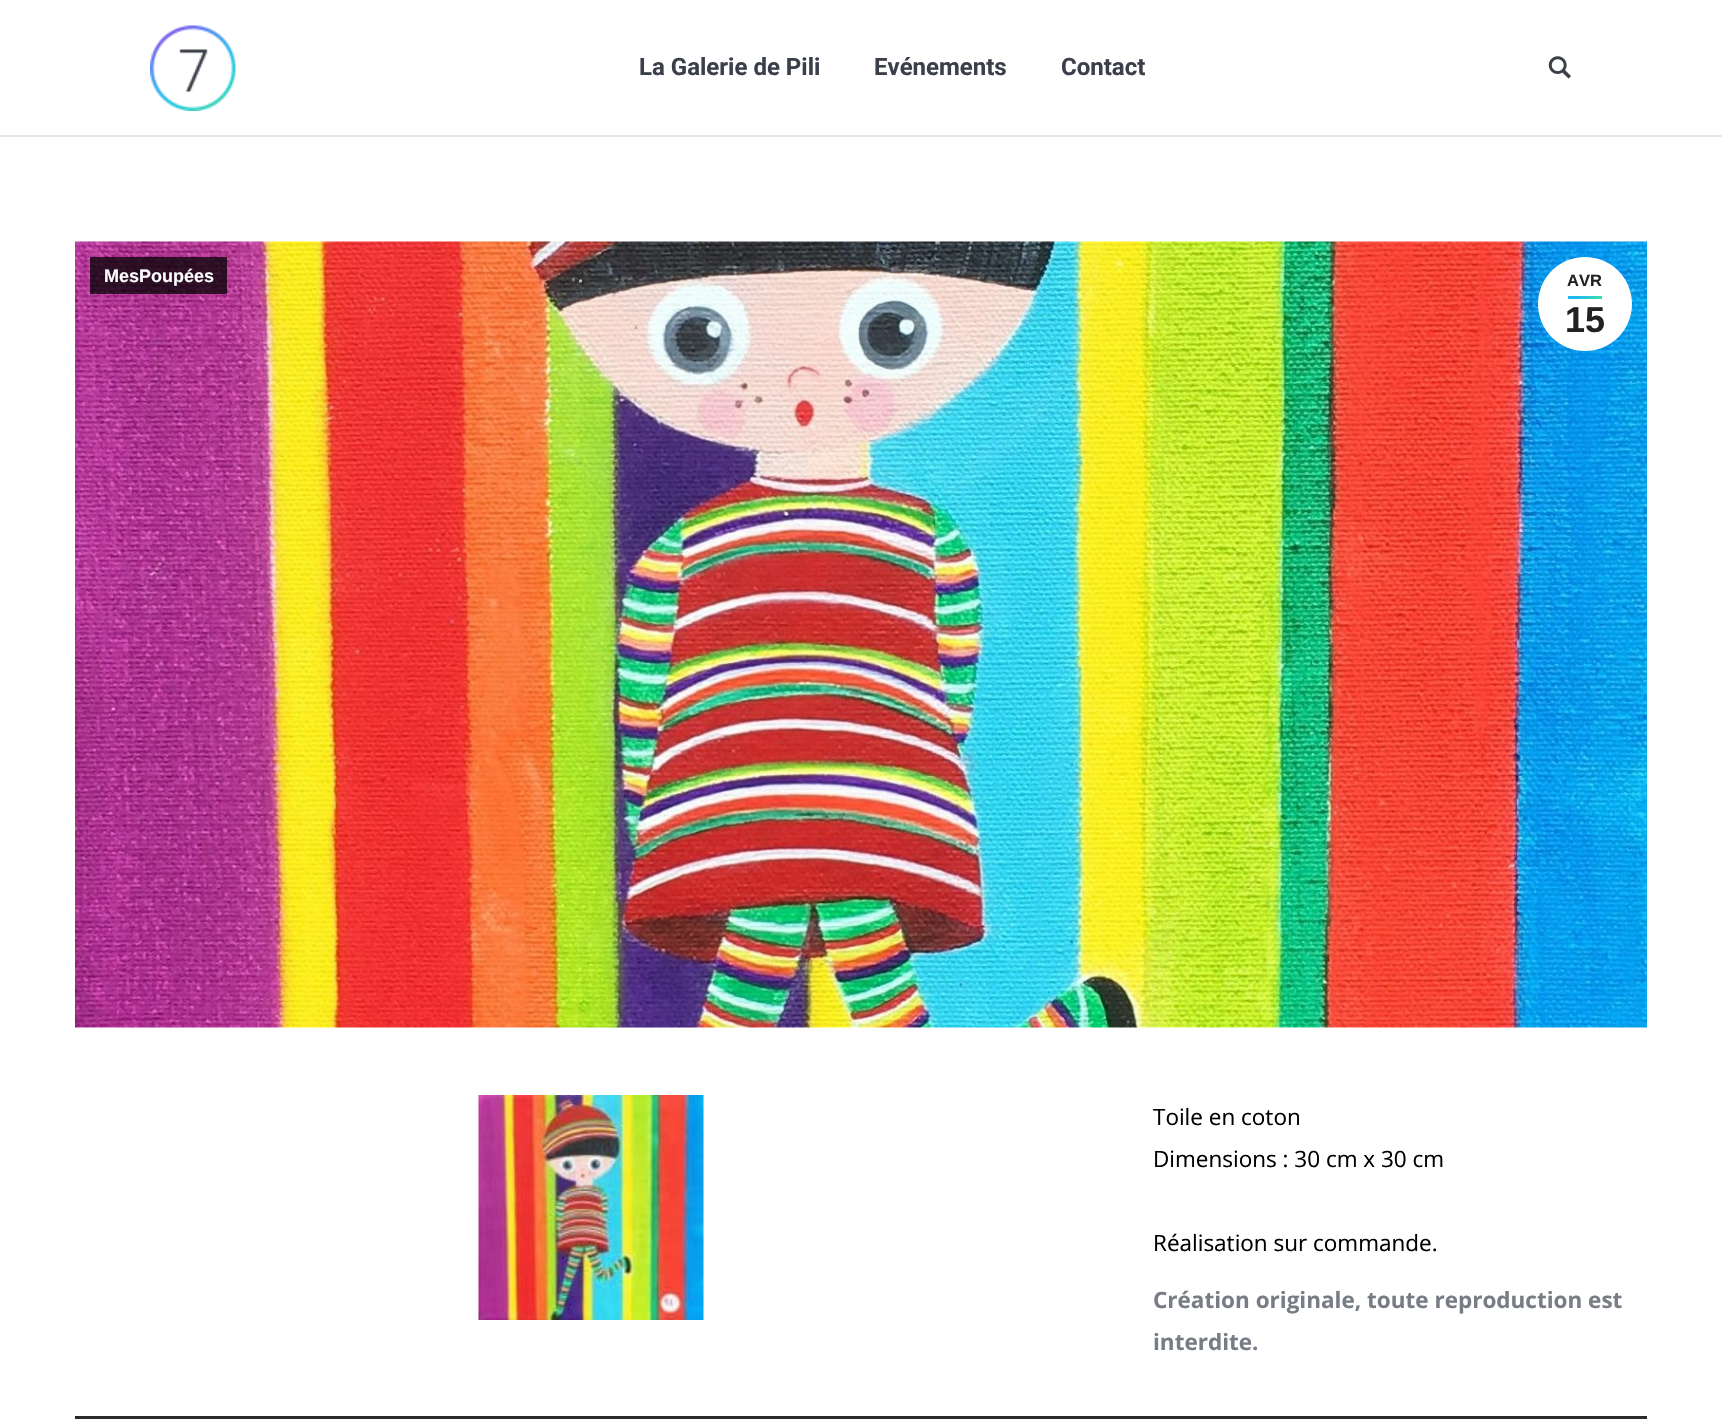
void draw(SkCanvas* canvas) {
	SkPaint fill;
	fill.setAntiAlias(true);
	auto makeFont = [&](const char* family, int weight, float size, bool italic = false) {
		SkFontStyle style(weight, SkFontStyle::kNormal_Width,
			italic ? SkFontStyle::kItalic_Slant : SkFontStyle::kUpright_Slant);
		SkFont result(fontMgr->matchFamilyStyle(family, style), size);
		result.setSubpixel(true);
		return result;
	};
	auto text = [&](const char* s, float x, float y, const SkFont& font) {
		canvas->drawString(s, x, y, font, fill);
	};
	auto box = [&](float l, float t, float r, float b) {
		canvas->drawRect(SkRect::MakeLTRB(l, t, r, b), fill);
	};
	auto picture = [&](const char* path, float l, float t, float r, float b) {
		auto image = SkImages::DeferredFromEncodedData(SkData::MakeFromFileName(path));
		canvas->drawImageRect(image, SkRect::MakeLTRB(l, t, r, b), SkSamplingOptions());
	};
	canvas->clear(0xFFFFFFFF);
	fill.setColor(0xFFE6E7E9);
	box(0, 135, 1722, 137);
	picture("image0.png", 150, 25, 236, 111);
	picture("image1.png", 1548, 56, 1571, 79);
	picture("image2.png", 75, 241, 1647, 1028);
	fill.setColor(0xBF000000);
	box(90, 257, 227, 294);
	fill.setColor(0xFFFFFFFF);
	canvas->drawCircle(1585, 304, 47, fill);
	{
		const SkColor colors[] = {0xFF1EBBF0, 0xFF39DFAA};
		const float stops[] = {0.3f, 1};
		const SkPoint ends[] = {{1575, 288}, {1594, 306}};
		fill.setShader(SkGradientShader::MakeLinear(ends, colors, stops, 2, SkTileMode::kClamp));
		fill.setAlpha(255);
	}
	box(1568, 296, 1602, 299);
	picture("image3.png", 478, 1095, 704, 1320);
	fill.setShader(nullptr);
	fill.setColor(0xFF2A2A2A);
	box(75, 1416, 1647, 1419);
	auto font1 = makeFont("Roboto", 700, 24);
	fill.setColor(0xFF3B3F4A);
	text("La Galerie de Pili", 639, 75, font1);
	text("Evénements", 874, 75, font1);
	text("Contact", 1061, 75, font1);
	auto font2 = makeFont("Liberation Sans", 700, 18);
	fill.setColor(0xFFFFFFFF);
	text("MesPoupées", 104, 282, font2);
	auto font3 = makeFont("Liberation Sans", 700, 16.5f);
	fill.setColor(0xFF222222);
	text("AVR", 1567, 286, font3);
	auto font4 = makeFont("Liberation Sans", 700, 36);
	text("15", 1565, 332, font4);
	auto font5 = makeFont("Open Sans", 400, 22.5f);
	fill.setColor(0xFF000000);
	text("Toile en coton", 1153, 1125, font5);
	text("Dimensions : 30 cm x 30 cm", 1153, 1167, font5);
	text("Réalisation sur commande.", 1153, 1251, font5);
	auto font6 = makeFont("Open Sans", 700, 22.5f);
	fill.setColor(0xFF787D85);
	text("Création originale, toute reproduction est", 1153, 1308, font6);
	text("interdite.", 1153, 1350, font6);
}
